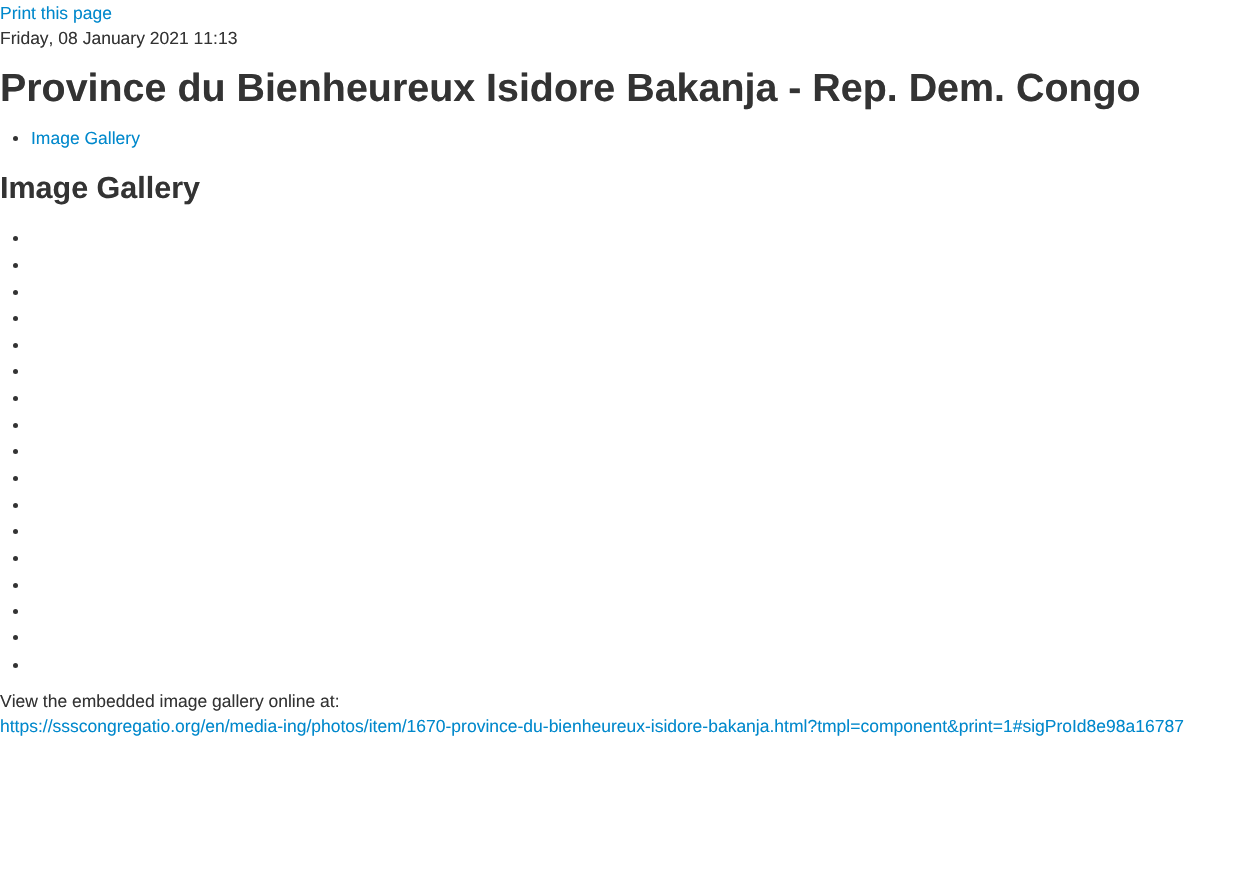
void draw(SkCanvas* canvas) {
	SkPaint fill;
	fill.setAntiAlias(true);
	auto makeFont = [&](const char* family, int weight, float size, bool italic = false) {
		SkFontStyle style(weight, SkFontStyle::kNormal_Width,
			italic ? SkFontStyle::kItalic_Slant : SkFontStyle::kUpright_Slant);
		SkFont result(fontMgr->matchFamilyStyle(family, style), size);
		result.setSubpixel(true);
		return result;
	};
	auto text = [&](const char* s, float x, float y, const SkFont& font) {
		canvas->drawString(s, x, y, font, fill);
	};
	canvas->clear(0xFFFFFFFF);
	fill.setColor(0xFF333333);
	canvas->drawCircle(15.5f, 138.5f, 2.5f, fill);
	canvas->drawCircle(15.5f, 238.5f, 2.5f, fill);
	canvas->drawCircle(15.5f, 265.5f, 2.5f, fill);
	canvas->drawCircle(15.5f, 292.5f, 2.5f, fill);
	canvas->drawCircle(15.5f, 318.5f, 2.5f, fill);
	canvas->drawCircle(15.5f, 345.5f, 2.5f, fill);
	canvas->drawCircle(15.5f, 371.5f, 2.5f, fill);
	canvas->drawCircle(15.5f, 398.5f, 2.5f, fill);
	canvas->drawCircle(15.5f, 425.5f, 2.5f, fill);
	canvas->drawCircle(15.5f, 451.5f, 2.5f, fill);
	canvas->drawCircle(15.5f, 478.5f, 2.5f, fill);
	canvas->drawCircle(15.5f, 505.5f, 2.5f, fill);
	canvas->drawCircle(15.5f, 531.5f, 2.5f, fill);
	canvas->drawCircle(15.5f, 558.5f, 2.5f, fill);
	canvas->drawCircle(15.5f, 585.5f, 2.5f, fill);
	canvas->drawCircle(15.5f, 611.5f, 2.5f, fill);
	canvas->drawCircle(15.5f, 637.5f, 2.5f, fill);
	canvas->drawCircle(15.5f, 665.5f, 2.5f, fill);
	auto font1 = makeFont("Liberation Sans", 400, 17.5f);
	fill.setColor(0xFF0088CC);
	text("Print this page", 0, 19, font1);
	fill.setColor(0xFF333333);
	text("Friday, 08 January 2021 11:13", 0, 44, font1);
	auto font2 = makeFont("Liberation Sans", 700, 39.4f);
	text("Province du Bienheureux Isidore Bakanja - Rep. Dem. Congo", 0, 101, font2);
	fill.setColor(0xFF0088CC);
	text("Image Gallery", 31, 144, font1);
	auto font3 = makeFont("Liberation Sans", 700, 30.5f);
	fill.setColor(0xFF333333);
	text("Image Gallery", 0, 198, font3);
	text("View the embedded image gallery online at:", 0, 707, font1);
	fill.setColor(0xFF0088CC);
	text("https://ssscongregatio.org/en/media-ing/photos/item/1670-province-du-bienheureux-isidore-bakanja.html?tmpl=component&print=1#sigProId8e98a16787", 0, 732, font1);
}
